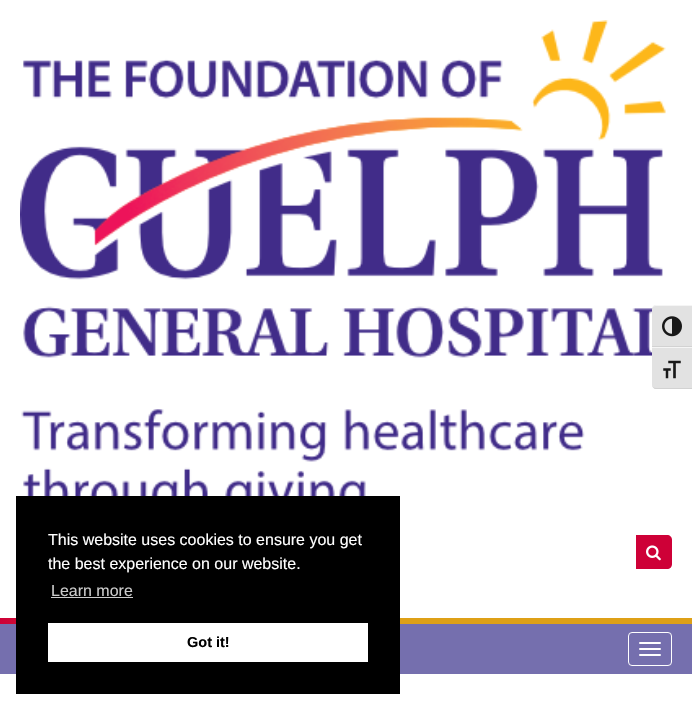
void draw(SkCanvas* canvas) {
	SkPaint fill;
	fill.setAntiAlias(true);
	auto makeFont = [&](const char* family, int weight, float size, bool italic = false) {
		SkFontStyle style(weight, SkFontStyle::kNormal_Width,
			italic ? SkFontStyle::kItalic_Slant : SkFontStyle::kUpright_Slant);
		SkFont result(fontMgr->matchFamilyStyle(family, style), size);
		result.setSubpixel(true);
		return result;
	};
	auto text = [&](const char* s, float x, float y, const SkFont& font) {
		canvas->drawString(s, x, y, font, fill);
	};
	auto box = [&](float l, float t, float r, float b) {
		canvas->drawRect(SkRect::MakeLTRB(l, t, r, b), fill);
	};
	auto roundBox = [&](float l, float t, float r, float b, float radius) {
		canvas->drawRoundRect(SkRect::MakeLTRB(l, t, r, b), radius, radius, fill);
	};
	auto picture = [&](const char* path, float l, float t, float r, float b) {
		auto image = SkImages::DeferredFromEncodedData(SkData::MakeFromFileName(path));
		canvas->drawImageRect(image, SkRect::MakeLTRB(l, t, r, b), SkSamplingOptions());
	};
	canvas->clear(0xFFFFFFFF);
	picture("image0.png", 0, 618, 692, 624);
	picture("image1.png", 20, 20, 666, 496);
	fill.setColor(0xFFCE0037);
	canvas->drawPath(SkPathBuilder().moveTo(636, 535).lineTo(667, 535).cubicTo(670, 535, 672, 537, 672, 540).lineTo(672, 564).cubicTo(672, 567, 670, 569, 667, 569).lineTo(636, 569).close().detach(), fill);
	picture("image2.png", 646, 545, 661, 561);
	fill.setColor(0xFFE2E2E2);
	canvas->drawPath(SkPathBuilder().moveTo(656, 305).lineTo(692, 305).lineTo(692, 347).lineTo(652, 347).lineTo(652, 309).cubicTo(652, 307, 654, 305, 656, 305).close().detach(), fill);
	fill.setColor(0xFFF5F5F5);
	canvas->drawPath(SkPathBuilder().moveTo(656, 306).lineTo(692, 306).lineTo(692, 305).lineTo(656, 305).cubicTo(654, 305, 652, 307, 652, 309).cubicTo(652, 307, 654, 306, 656, 306).close().detach(), fill);
	fill.setColor(0xFFD2D2D2);
	box(652, 346, 692, 347);
	picture("image3.png", 662, 316, 682, 337);
	fill.setColor(0xFFE2E2E2);
	canvas->drawPath(SkPathBuilder().moveTo(652, 347).lineTo(692, 347).lineTo(692, 389).lineTo(656, 389).cubicTo(654, 389, 652, 387, 652, 385).close().detach(), fill);
	fill.setColor(0xFFF5F5F5);
	box(652, 347, 692, 348);
	fill.setColor(0xFFD2D2D2);
	canvas->drawPath(SkPathBuilder().moveTo(692, 389).lineTo(692, 388).lineTo(656, 388).cubicTo(654, 388, 652, 387, 652, 385).cubicTo(652, 387, 654, 389, 656, 389).close().detach(), fill);
	picture("image4.png", 663, 360, 681, 379);
	fill.setColor(0xFF756FAE);
	box(0, 624, 692, 674);
	fill.setColor(0xFF000000);
	box(16, 496, 400, 694);
	fill.setColor(0xFFCCCCCC);
	box(51, 597, 133, 598);
	fill.setColor(0xFFFFFFFF);
	box(48, 623, 368, 662);
	fill.setStyle(SkPaint::kStroke_Style);
	fill.setStrokeWidth(1);
	canvas->drawRoundRect(SkRect::MakeLTRB(628.5f, 632.5f, 671.5f, 665.5f), 3.5f, 3.5f, fill);
	fill.setStyle(SkPaint::kFill_Style);
	roundBox(639, 642, 661, 644, 1);
	roundBox(639, 648, 661, 650, 1);
	roundBox(639, 654, 661, 656, 1);
	auto font1 = makeFont("Liberation Sans", 400, 16);
	text("This website uses cookies to ensure you get", 48, 545, font1);
	text("the best experience on our website.", 48, 569, font1);
	fill.setColor(0xFFCCCCCC);
	text("Learn more", 51, 596, font1);
	auto font2 = makeFont("Liberation Sans", 700, 14.5f);
	fill.setColor(0xFF000000);
	text("Got it!", 187, 647, font2);
}
